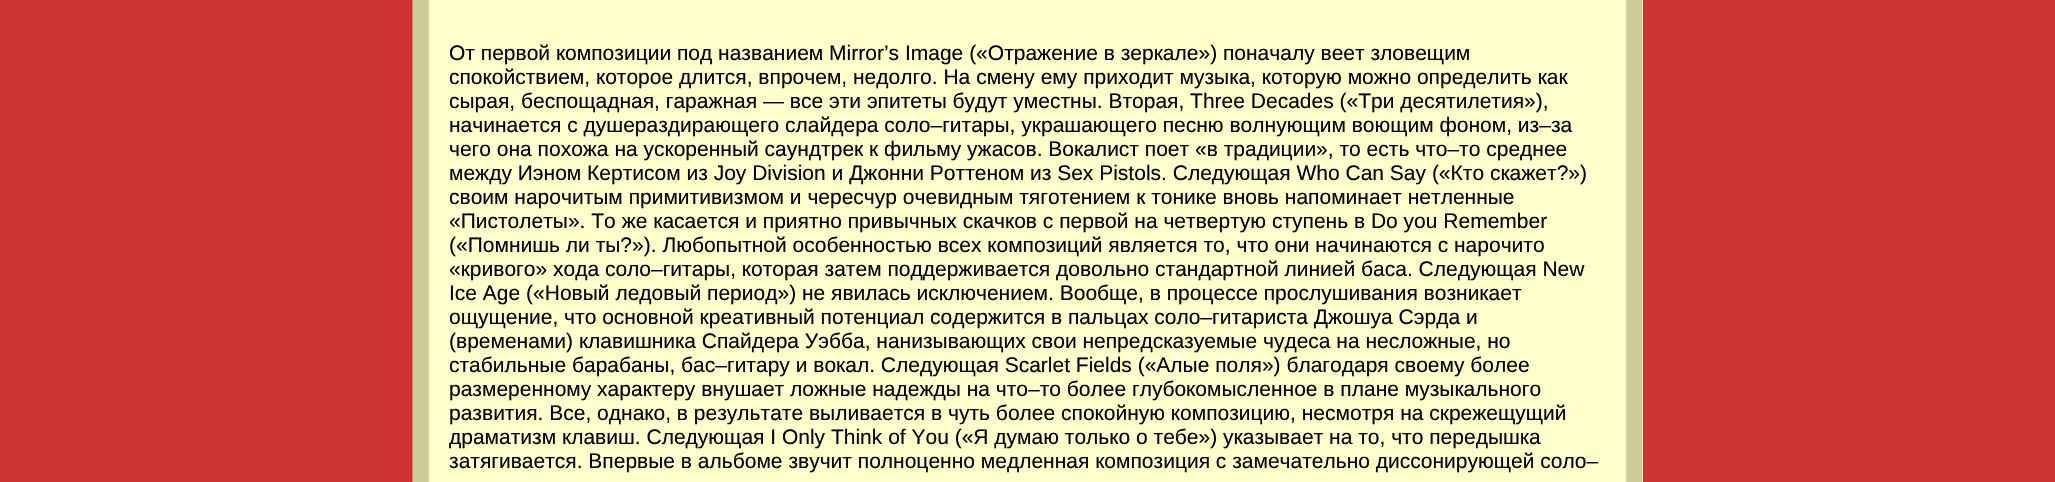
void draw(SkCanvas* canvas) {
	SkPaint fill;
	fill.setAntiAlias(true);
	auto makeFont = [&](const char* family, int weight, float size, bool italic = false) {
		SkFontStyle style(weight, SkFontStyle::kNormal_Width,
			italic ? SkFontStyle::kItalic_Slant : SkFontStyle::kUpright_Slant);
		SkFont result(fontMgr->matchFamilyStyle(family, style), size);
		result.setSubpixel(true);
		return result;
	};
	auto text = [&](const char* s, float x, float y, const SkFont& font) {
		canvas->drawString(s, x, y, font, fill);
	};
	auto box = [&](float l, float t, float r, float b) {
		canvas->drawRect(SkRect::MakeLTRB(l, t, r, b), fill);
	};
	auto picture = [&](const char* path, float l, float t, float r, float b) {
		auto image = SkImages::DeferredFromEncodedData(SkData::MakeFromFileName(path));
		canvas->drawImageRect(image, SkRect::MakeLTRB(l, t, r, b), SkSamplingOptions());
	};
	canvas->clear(0xFFCD3333);
	fill.setColor(0xFFFFFFFF);
	box(1642, 0, 1643, 482);
	picture("image0.png", 412, 0, 1643, 482);
	auto font1 = makeFont("Liberation Sans", 400, 21);
	fill.setColor(0xFF000000);
	text("От первой композиции под названием Mirror’s Image («Отражение в зеркале») поначалу веет зловещим", 449, 60, font1);
	text("спокойствием, которое длится, впрочем, недолго. На смену ему приходит музыка, которую можно определить как", 449, 84, font1);
	text("сырая, беспощадная, гаражная — все эти эпитеты будут уместны. Вторая, Three Decades («Три десятилетия»),", 449, 108, font1);
	text("начинается с душераздирающего слайдера соло–гитары, украшающего песню волнующим воющим фоном, из–за", 449, 132, font1);
	text("чего она похожа на ускоренный саундтрек к фильму ужасов. Вокалист поет «в традиции», то есть что–то среднее", 449, 156, font1);
	text("между Иэном Кертисом из Joy Division и Джонни Роттеном из Sex Pistols. Следующая Who Can Say («Кто скажет?»)", 449, 180, font1);
	text("своим нарочитым примитивизмом и чересчур очевидным тяготением к тонике вновь напоминает нетленные", 449, 204, font1);
	text("«Пистолеты». То же касается и приятно привычных скачков с первой на четвертую ступень в Do you Remember", 449, 228, font1);
	text("(«Помнишь ли ты?»). Любопытной особенностью всех композиций является то, что они начинаются с нарочито", 449, 252, font1);
	text("«кривого» хода соло–гитары, которая затем поддерживается довольно стандартной линией баса. Следующая New", 449, 276, font1);
	text("Ice Age («Новый ледовый период») не явилась исключением. Вообще, в процессе прослушивания возникает", 449, 300, font1);
	text("ощущение, что основной креативный потенциал содержится в пальцах соло–гитариста Джошуа Сэрда и", 449, 324, font1);
	text("(временами) клавишника Спайдера Уэбба, нанизывающих свои непредсказуемые чудеса на несложные, но", 449, 348, font1);
	text("стабильные барабаны, бас–гитару и вокал. Следующая Scarlet Fields («Алые поля») благодаря своему более", 449, 372, font1);
	text("размеренному характеру внушает ложные надежды на что–то более глубокомысленное в плане музыкального", 449, 396, font1);
	text("развития. Все, однако, в результате выливается в чуть более спокойную композицию, несмотря на скрежещущий", 449, 420, font1);
	text("драматизм клавиш. Следующая I Only Think of You («Я думаю только о тебе») указывает на то, что передышка", 449, 444, font1);
	text("затягивается. Впервые в альбоме звучит полноценно медленная композиция с замечательно диссонирующей соло–", 449, 468, font1);
}
